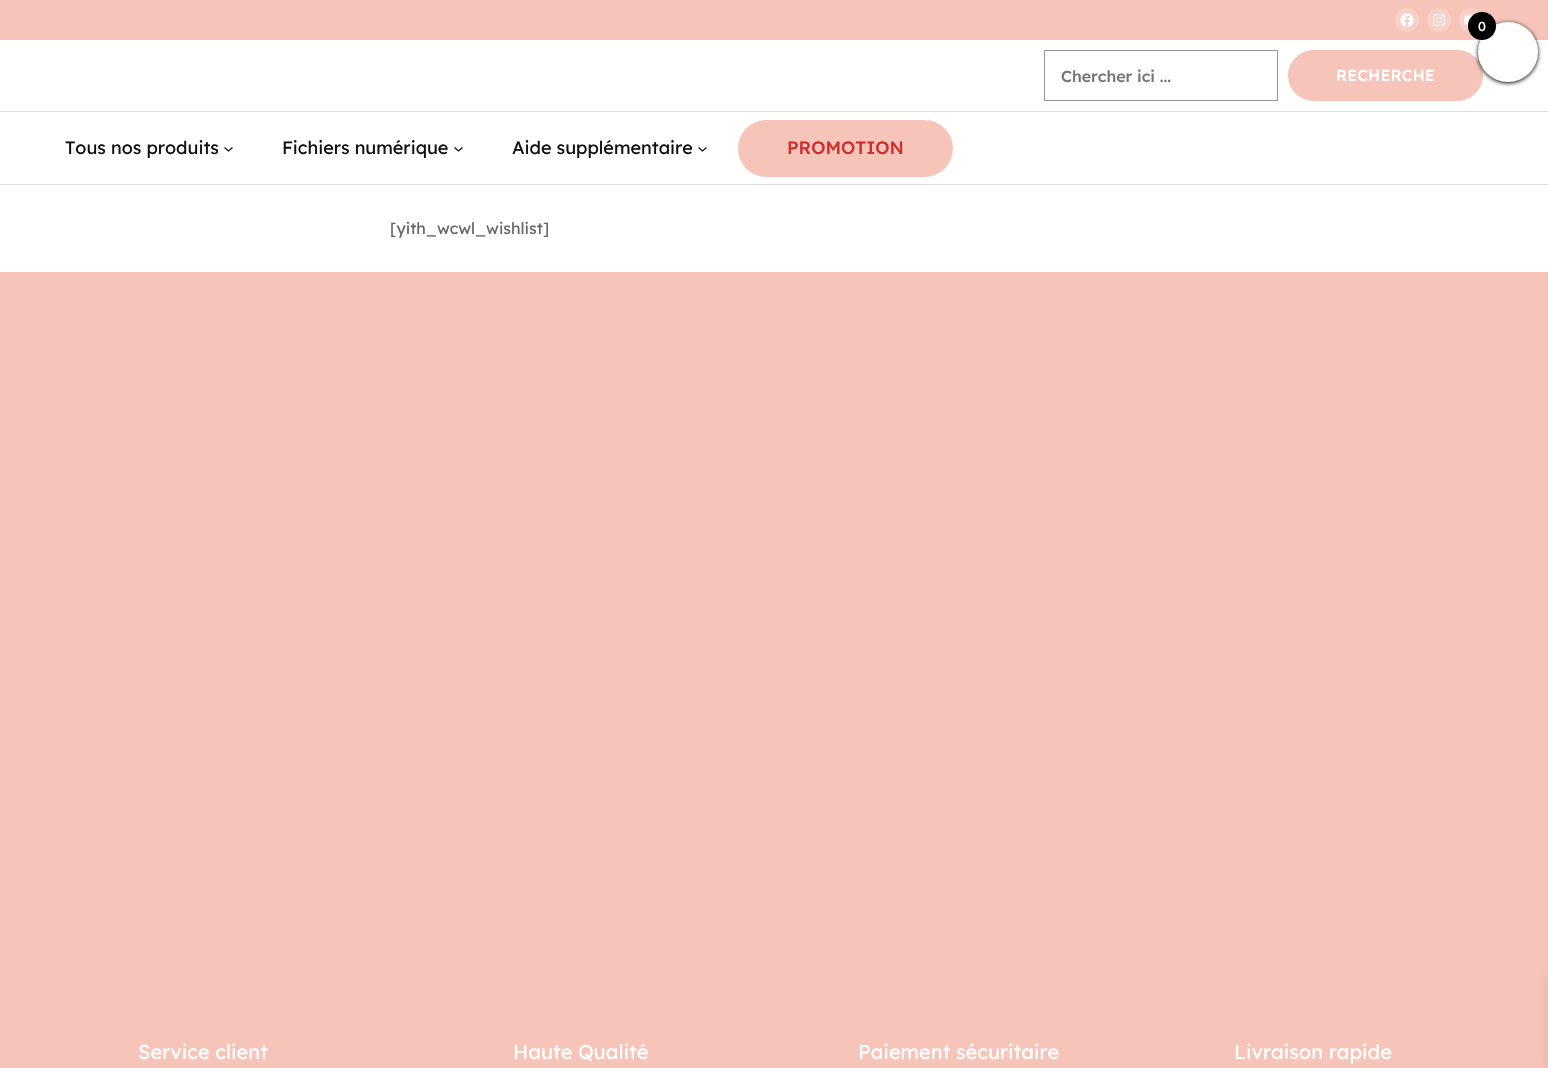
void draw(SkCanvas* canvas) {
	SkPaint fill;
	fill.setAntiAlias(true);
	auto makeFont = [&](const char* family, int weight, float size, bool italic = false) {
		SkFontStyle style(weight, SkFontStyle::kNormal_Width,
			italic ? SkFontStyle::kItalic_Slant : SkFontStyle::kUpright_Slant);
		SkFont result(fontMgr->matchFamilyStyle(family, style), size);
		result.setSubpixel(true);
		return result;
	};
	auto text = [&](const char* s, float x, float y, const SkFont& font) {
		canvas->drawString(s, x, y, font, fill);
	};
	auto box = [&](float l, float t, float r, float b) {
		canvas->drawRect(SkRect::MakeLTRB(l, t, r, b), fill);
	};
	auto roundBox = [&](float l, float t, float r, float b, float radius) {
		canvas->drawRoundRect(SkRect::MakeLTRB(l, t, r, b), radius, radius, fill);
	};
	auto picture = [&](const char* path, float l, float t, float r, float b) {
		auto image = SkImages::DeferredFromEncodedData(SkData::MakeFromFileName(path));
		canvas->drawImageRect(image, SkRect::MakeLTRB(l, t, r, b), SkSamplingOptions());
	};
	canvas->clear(0xFFFFFFFF);
	fill.setColor(0xFFF6C4B8);
	box(0, 0, 1548, 40);
	fill.setColor(0xFFF8D0C6);
	canvas->drawCircle(1471, 20, 12, fill);
	picture("image2.png", 1464, 15, 1474, 25);
	fill.setColor(0xFFF6C4B8);
	roundBox(1288, 50, 1483, 101, 25.5f);
	fill.setColor(0xFF000000);
	fill.setMaskFilter(SkMaskFilter::MakeBlur(kNormal_SkBlurStyle, 2));
	canvas->drawRoundRect(SkRect::MakeLTRB(1478, 23, 1538, 83), 30, 30, fill);
	fill.setMaskFilter(nullptr);
	fill.setColor(0xFFFFFFFF);
	canvas->drawCircle(1508, 52, 30, fill);
	fill.setColor(0xFF000000);
	canvas->drawCircle(1482, 26, 14, fill);
	fill.setColor(0xFFF6C4B8);
	box(0, 272, 1548, 1068);
	fill.setColor(0x1A000000);
	fill.setMaskFilter(SkMaskFilter::MakeBlur(kNormal_SkBlurStyle, 5));
	canvas->drawRect(SkRect::MakeLTRB(1548, 977, 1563, 1067), fill);
	fill.setMaskFilter(nullptr);
	fill.setColor(0xFFF8D0C6);
	canvas->drawCircle(1407, 20, 12, fill);
	picture("image0.png", 1400, 13, 1414, 27);
	canvas->drawCircle(1439, 20, 12, fill);
	picture("image1.png", 1433, 14, 1445, 26);
	fill.setColor(0xFFDEDEDE);
	box(0, 111, 1548, 112);
	fill.setStyle(SkPaint::kStroke_Style);
	fill.setStrokeWidth(1);
	fill.setColor(0xFF949494);
	canvas->drawRect(SkRect::MakeLTRB(1044.5f, 50.5f, 1277.5f, 100.5f), fill);
	fill.setStyle(SkPaint::kFill_Style);
	fill.setColor(0xFFDEDEDE);
	box(0, 184, 1548, 185);
	fill.setStyle(SkPaint::kStroke_Style);
	fill.setStrokeWidth(1.3f);
	fill.setColor(0xFF111111);
	canvas->drawPath(SkPathBuilder().moveTo(224.5f, 147.5f).lineTo(228.5f, 151).lineTo(232.5f, 147.5f).detach(), fill);
	canvas->drawPath(SkPathBuilder().moveTo(454.5f, 147.5f).lineTo(458.5f, 151).lineTo(462.5f, 147.5f).detach(), fill);
	canvas->drawPath(SkPathBuilder().moveTo(698.5f, 147.5f).lineTo(702.5f, 151).lineTo(706.5f, 147.5f).detach(), fill);
	fill.setStyle(SkPaint::kFill_Style);
	fill.setColor(0xFFF6C4B8);
	roundBox(738, 120, 953, 177, 28.5f);
	auto font1 = makeFont("Lexend", 400, 13);
	fill.setColor(0xFFFFFFFF);
	text("0", 1478, 31, font1);
	auto font2 = makeFont("Lexend", 500, 16);
	fill.setColor(0xFF757575);
	text("Chercher ici ...", 1061, 82, font2);
	fill.setColor(0xFFFFFFFF);
	text("RECHERCHE", 1336, 81, font2);
	auto font3 = makeFont("Lexend", 400, 18);
	fill.setColor(0xFF111111);
	text("Tous nos produits", 65, 154, font3);
	text("Fichiers numérique", 282, 154, font3);
	text("Aide supplémentaire", 512, 154, font3);
	auto font4 = makeFont("Lexend", 500, 18);
	fill.setColor(0xFFCF2E2E);
	text("PROMOTION", 787, 154, font4);
	auto font5 = makeFont("Lexend", 400, 16);
	fill.setColor(0xFF666666);
	text("[yith_wcwl_wishlist]", 390, 234, font5);
	auto font6 = makeFont("Lexend", 400, 20);
	fill.setColor(0xFFFFFFFF);
	text("Service client", 138, 1059, font6);
	text("Haute Qualité", 513, 1059, font6);
	text("Paiement sécuritaire", 858, 1059, font6);
	text("Livraison rapide", 1234, 1059, font6);
}
